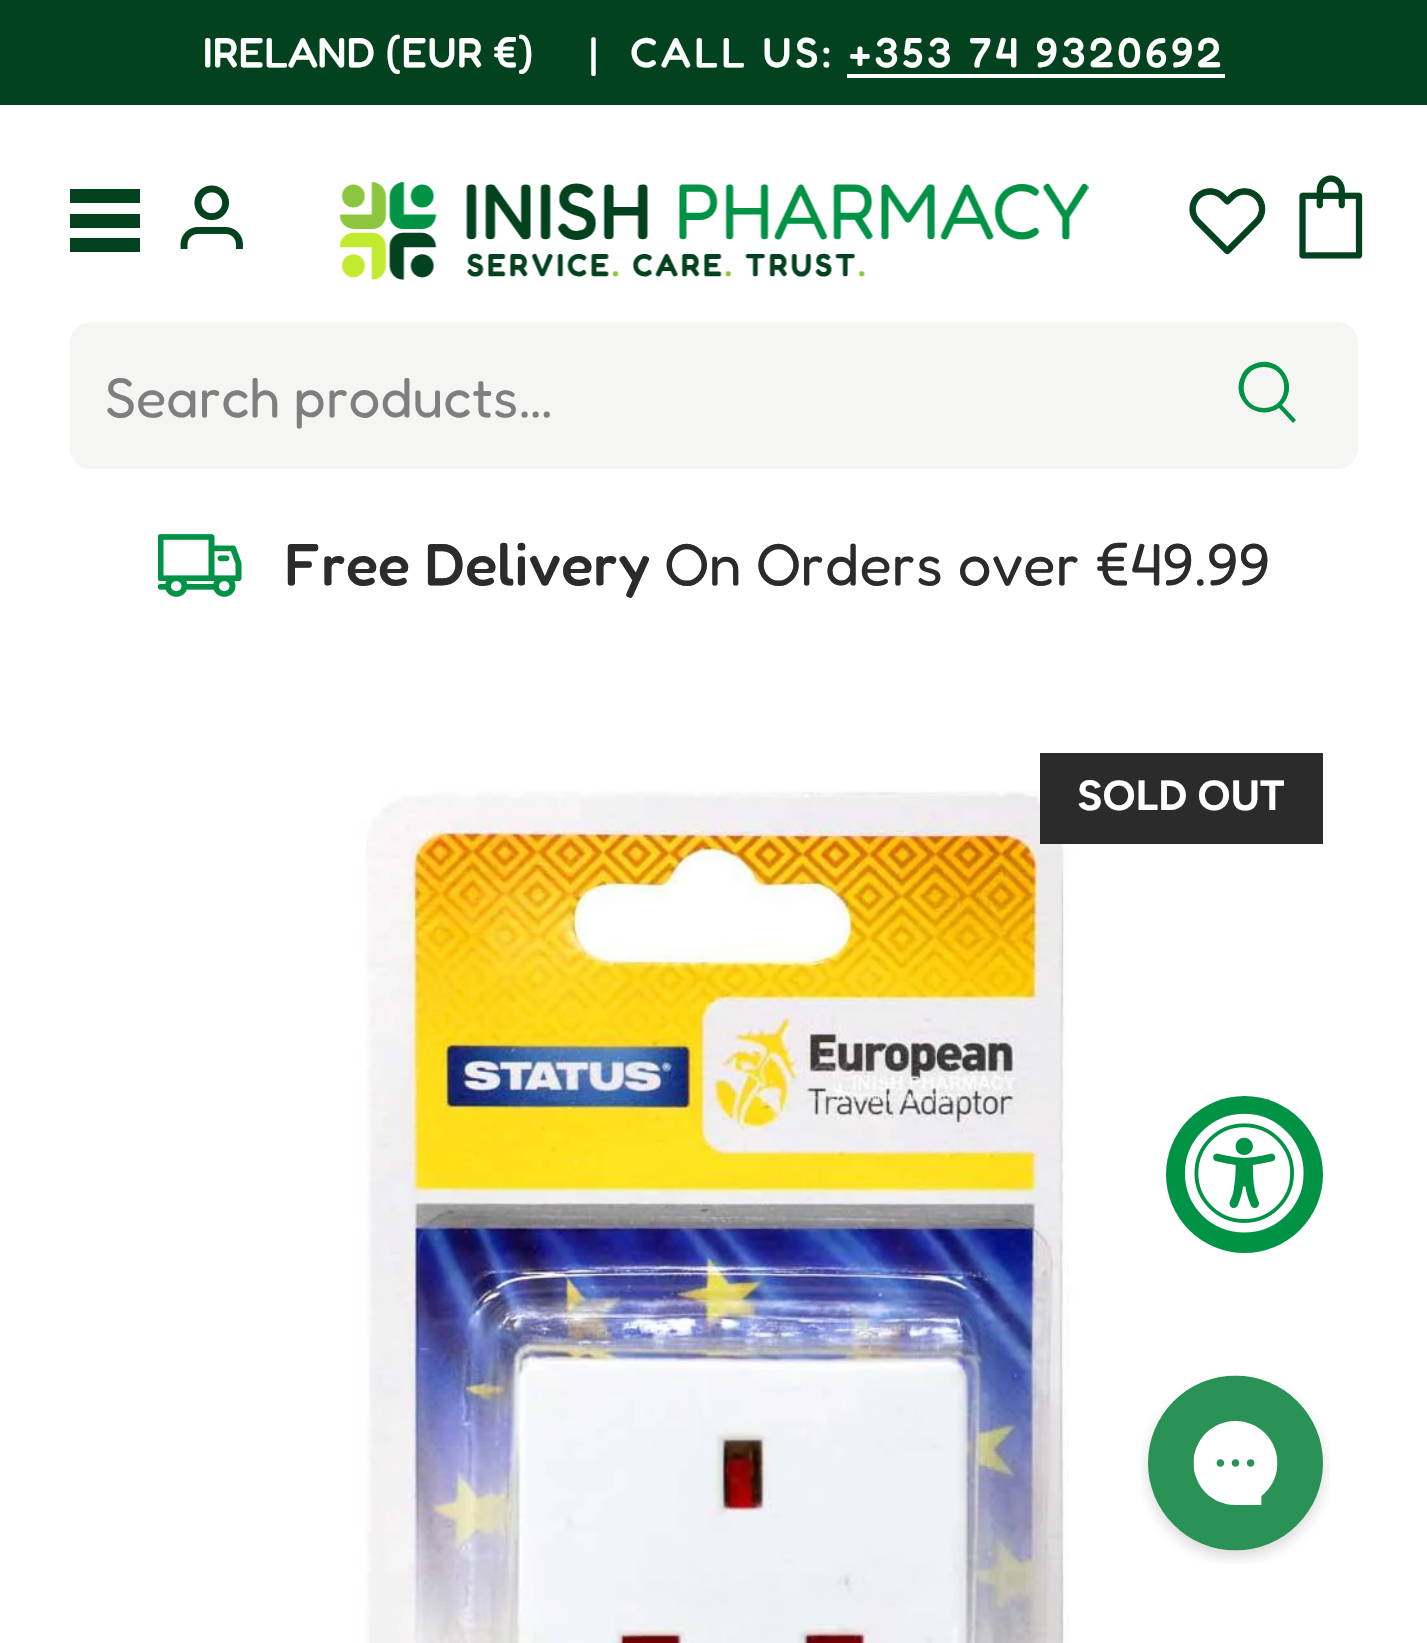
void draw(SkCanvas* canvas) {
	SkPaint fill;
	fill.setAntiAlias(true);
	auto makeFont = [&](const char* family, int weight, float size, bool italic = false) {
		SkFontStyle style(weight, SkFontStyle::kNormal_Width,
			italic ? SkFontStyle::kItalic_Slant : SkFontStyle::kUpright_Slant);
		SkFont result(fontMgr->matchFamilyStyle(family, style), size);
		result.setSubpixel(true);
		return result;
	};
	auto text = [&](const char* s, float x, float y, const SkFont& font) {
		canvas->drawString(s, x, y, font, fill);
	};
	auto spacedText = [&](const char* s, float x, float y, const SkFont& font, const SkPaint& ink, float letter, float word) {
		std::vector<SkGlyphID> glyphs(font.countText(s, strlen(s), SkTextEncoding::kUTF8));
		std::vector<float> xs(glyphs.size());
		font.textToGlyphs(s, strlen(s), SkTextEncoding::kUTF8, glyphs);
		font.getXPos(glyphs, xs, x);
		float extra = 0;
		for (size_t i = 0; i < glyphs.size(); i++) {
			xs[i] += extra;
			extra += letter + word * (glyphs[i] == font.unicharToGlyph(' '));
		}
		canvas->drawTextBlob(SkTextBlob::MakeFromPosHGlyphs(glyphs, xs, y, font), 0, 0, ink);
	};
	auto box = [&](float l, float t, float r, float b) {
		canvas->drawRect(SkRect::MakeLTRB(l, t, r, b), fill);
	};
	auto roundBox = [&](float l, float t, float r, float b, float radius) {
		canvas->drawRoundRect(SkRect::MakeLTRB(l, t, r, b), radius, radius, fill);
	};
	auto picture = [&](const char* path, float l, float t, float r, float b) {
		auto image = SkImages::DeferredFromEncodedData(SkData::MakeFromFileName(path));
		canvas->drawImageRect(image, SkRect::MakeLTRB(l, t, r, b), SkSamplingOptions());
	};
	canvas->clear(0xFFFFFFFF);
	fill.setColor(0xFF03421E);
	box(0, 0, 1427, 105);
	fill.setColor(0xFFFFFFFF);
	box(847, 74, 1225, 78);
	fill.setColor(0xFF03421E);
	box(70, 189, 140, 203);
	box(70, 238, 140, 252);
	box(70, 214, 140, 228);
	picture("image0.png", 180, 185, 243, 249);
	picture("image1.png", 1189, 188, 1266, 255);
	picture("image2.png", 1299, 175, 1363, 259);
	picture("image3.png", 340, 182, 1089, 280);
	fill.setColor(0xFFF5F6F4);
	roundBox(70, 322, 1358, 469, 21);
	fill.setColor(0xFF009245);
	canvas->drawPath(SkPathBuilder().moveTo(1282, 405).lineTo(1296, 420).lineTo(1293, 423).lineTo(1279, 408).cubicTo(1267, 416, 1251, 413, 1243, 401).cubicTo(1238, 394, 1237, 385, 1241, 377).cubicTo(1243, 371, 1248, 366, 1254, 364).cubicTo(1279, 353, 1301, 385, 1282, 405).close().moveTo(1264, 408).cubicTo(1291, 408, 1291, 367, 1264, 367).cubicTo(1237, 367, 1237, 408, 1264, 408).close().detach(), fill);
	picture("image4.png", 158, 534, 242, 597);
	picture("image5.png", 70, 718, 1358, 1643);
	fill.setColor(0xFF2A2B2A);
	box(1040, 753, 1323, 844);
	fill.setColor(0xFF009245);
	canvas->drawCircle(1244.5f, 1174.5f, 78.5f, fill);
	picture("image6.png", 1184, 1113, 1304, 1233);
	picture("image7.png", 1141, 1375, 1330, 1564);
	auto font1 = makeFont("Fredoka", 500, 42);
	fill.setColor(0xFFFFFFFF);
	text("IRELAND (EUR €)", 203, 67, font1);
	spacedText("|", 589, 67, font1, fill, 3.5f, 0);
	spacedText("CALL US: +353 74 9320692", 630, 67, font1, fill, 3.5f, 0);
	auto font2 = makeFont("Fredoka", 400, 56);
	fill.setColor(0xFF7E7F7E);
	text("Search products…", 105, 417, font2);
	auto font3 = makeFont("Fredoka", 500, 59.5f);
	fill.setColor(0xFF2A2B2A);
	text("Free Delivery", 284, 585, font3);
	auto font4 = makeFont("Fredoka", 400, 59.5f);
	text("On Orders over €49.99", 665, 585, font4);
	auto font5 = makeFont("Figtree", 700, 42);
	fill.setColor(0xFFFFFFFF);
	text("SOLD OUT", 1077, 810, font5);
}
